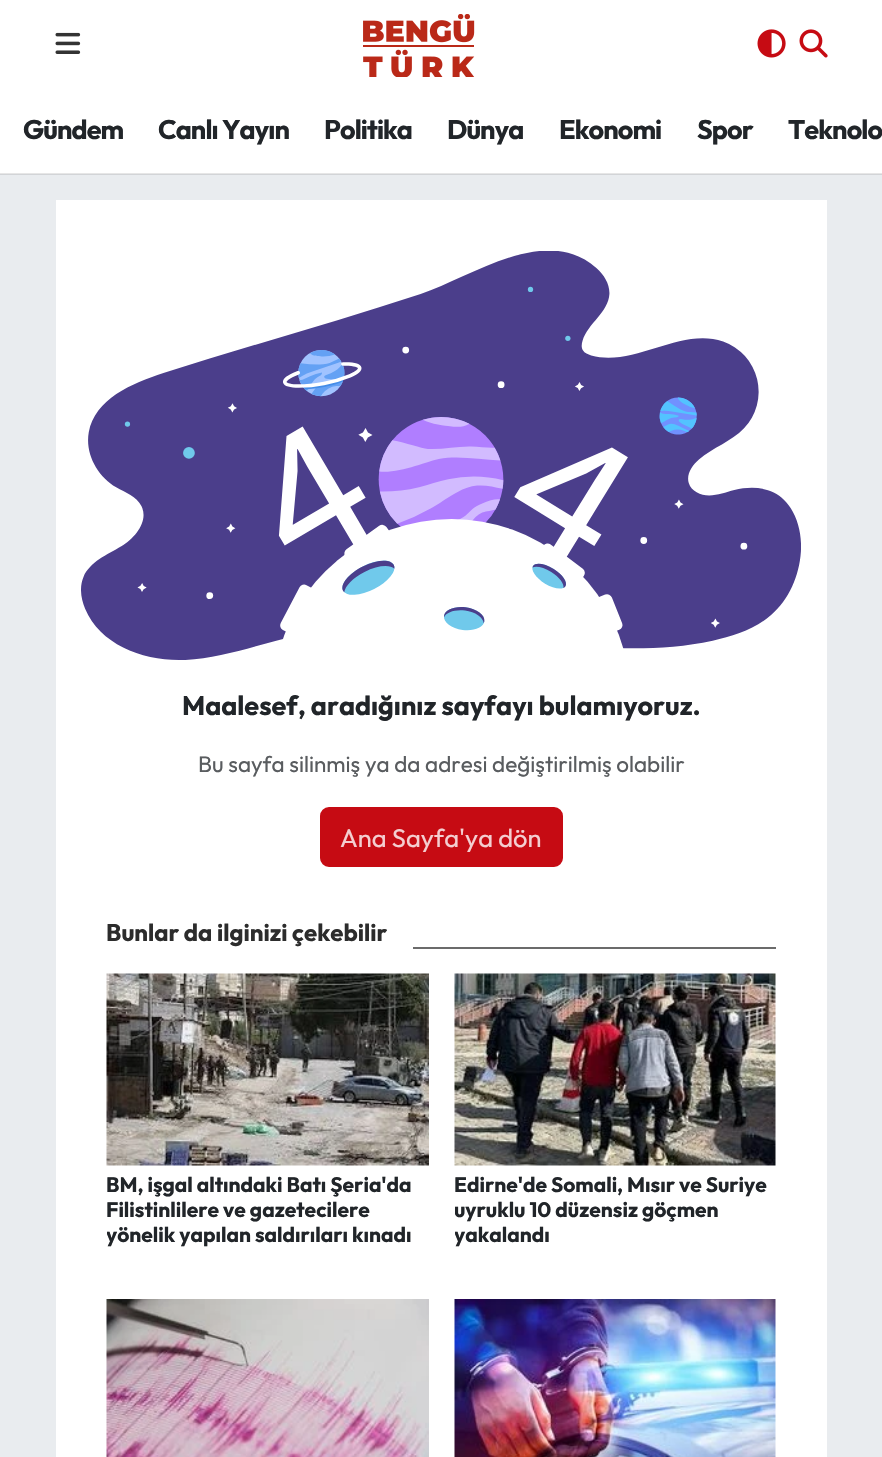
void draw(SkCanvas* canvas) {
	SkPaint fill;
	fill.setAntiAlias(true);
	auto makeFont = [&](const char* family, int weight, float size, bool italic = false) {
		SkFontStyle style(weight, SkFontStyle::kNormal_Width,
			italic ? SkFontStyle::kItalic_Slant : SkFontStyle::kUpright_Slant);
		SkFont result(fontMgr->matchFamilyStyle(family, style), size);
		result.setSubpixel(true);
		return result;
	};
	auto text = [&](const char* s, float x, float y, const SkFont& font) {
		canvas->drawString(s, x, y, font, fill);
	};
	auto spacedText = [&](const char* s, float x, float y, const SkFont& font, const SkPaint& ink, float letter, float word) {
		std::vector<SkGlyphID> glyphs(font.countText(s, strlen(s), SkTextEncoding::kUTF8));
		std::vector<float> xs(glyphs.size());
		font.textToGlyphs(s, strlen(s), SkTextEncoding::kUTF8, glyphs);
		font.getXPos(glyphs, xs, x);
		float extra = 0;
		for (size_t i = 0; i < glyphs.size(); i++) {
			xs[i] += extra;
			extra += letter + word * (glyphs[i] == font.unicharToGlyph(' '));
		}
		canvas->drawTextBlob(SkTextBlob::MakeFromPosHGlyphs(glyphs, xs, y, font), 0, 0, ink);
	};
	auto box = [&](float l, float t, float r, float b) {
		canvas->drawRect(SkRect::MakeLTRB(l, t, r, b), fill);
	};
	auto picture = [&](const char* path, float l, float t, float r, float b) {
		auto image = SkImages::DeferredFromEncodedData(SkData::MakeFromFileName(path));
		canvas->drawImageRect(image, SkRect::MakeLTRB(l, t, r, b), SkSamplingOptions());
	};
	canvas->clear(0xFFE9ECEF);
	fill.setColor(0xFFD2D4D7);
	box(0, 174, 882, 175);
	fill.setColor(0xFFFFFFFF);
	box(0, 0, 882, 173);
	picture("image0.png", 55, 32, 81, 54);
	picture("image1.png", 363, 14, 475, 77);
	picture("image2.png", 757, 29, 786, 58);
	picture("image3.png", 799, 29, 828, 58);
	fill.setColor(0xFFE6E6E6);
	box(0, 173, 882, 174);
	fill.setColor(0xFFFFFFFF);
	box(56, 200, 827, 1457);
	picture("image4.png", 81, 251, 801, 660);
	fill.setColor(0xFFC60B13);
	canvas->drawRoundRect(SkRect::MakeLTRB(321, 808, 562, 866), 8, 8, fill);
	fill.setStyle(SkPaint::kStroke_Style);
	fill.setStrokeWidth(2);
	canvas->drawRoundRect(SkRect::MakeLTRB(321, 808, 562, 866), 8, 8, fill);
	fill.setStyle(SkPaint::kFill_Style);
	fill.setColor(0xFF6B6B6B);
	box(413, 947, 776, 949);
	picture("image5.png", 106, 973, 429, 1166);
	picture("image6.png", 454, 973, 776, 1166);
	picture("image7.png", 106, 1299, 429, 1457);
	picture("image8.png", 454, 1299, 776, 1457);
	auto font1 = makeFont("Outfit", 700, 27);
	fill.setColor(0xFF212529);
	spacedText("Gündem", 23, 139, font1, fill, -0.9f, 0);
	spacedText("Canlı Yayın", 158, 139, font1, fill, -0.9f, 0);
	spacedText("Politika", 324, 139, font1, fill, -0.9f, 0);
	spacedText("Dünya", 447, 139, font1, fill, -0.9f, 0);
	spacedText("Ekonomi", 559, 139, font1, fill, -0.9f, 0);
	spacedText("Spor", 697, 139, font1, fill, -0.9f, 0);
	spacedText("Teknolo", 788, 139, font1, fill, -0.9f, 0);
	text("Maalesef, aradığınız sayfayı bulamıyoruz.", 182, 715, font1);
	auto font2 = makeFont("Outfit", 400, 22.5f);
	fill.setColor(0xFF595C5F);
	text("Bu sayfa silinmiş ya da adresi değiştirilmiş olabilir", 198, 772, font2);
	auto font3 = makeFont("Outfit", 400, 25.5f);
	fill.setColor(0xFFF4CED0);
	text("Ana Sayfa'ya dön", 340, 847, font3);
	auto font4 = makeFont("Outfit", 700, 24);
	fill.setColor(0xFF2C2C2C);
	text("Bunlar da ilginizi çekebilir", 106, 941, font4);
	auto font5 = makeFont("Outfit", 700, 21);
	fill.setColor(0xFF212529);
	text("BM, işgal altındaki Batı Şeria'da", 106, 1192, font5);
	text("Filistinlilere ve gazetecilere", 106, 1217, font5);
	canvas->save();
	canvas->clipRect(SkRect::MakeLTRB(107, 1173, 429, 1248));
	text("yönelik yapılan saldırıları kınadı", 106, 1242, font5);
	canvas->restore();
	text("Edirne'de Somali, Mısır ve Suriye", 454, 1192, font5);
	canvas->save();
	canvas->clipRect(SkRect::MakeLTRB(455, 1173, 776, 1248));
	text("uyruklu 10 düzensiz göçmen", 454, 1217, font5);
	text("yakalandı", 454, 1242, font5);
	canvas->restore();
}
